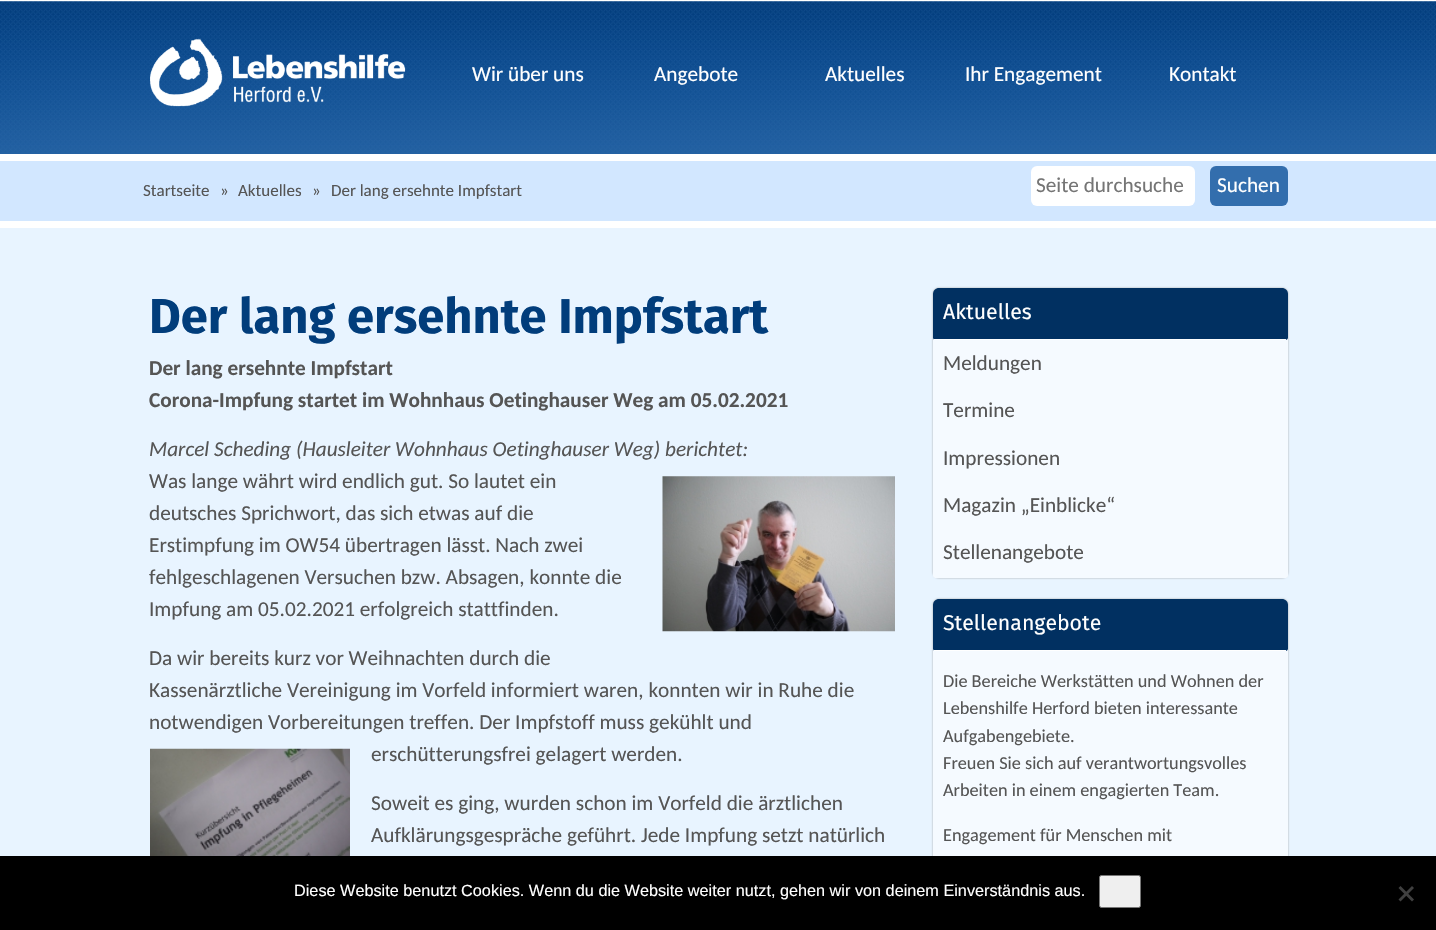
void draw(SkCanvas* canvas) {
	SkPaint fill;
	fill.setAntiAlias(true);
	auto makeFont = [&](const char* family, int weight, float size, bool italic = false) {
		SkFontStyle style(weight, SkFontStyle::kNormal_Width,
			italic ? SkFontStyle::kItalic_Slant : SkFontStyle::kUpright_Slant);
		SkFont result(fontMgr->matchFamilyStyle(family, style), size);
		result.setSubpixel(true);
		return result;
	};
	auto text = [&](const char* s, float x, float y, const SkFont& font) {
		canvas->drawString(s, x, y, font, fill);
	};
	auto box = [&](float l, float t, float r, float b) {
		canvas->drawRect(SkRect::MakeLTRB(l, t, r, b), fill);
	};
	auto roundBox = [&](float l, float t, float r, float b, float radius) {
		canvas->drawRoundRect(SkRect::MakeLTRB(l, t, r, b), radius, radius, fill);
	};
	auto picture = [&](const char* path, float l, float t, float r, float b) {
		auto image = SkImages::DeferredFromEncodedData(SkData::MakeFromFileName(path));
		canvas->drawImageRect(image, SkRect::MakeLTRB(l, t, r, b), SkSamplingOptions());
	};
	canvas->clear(0xFFE8F4FF);
	picture("image0.png", 0, 1, 1436, 154);
	fill.setColor(0xFFFFFFFF);
	box(0, 0, 1436, 1);
	box(0, 154, 1436, 161);
	picture("image1.png", 150, 38, 406, 107);
	fill.setColor(0xFFD2E7FF);
	box(0, 161, 1436, 221);
	fill.setColor(0xFFFFFFFF);
	box(0, 221, 1436, 228);
	roundBox(1031, 166, 1195, 206, 6);
	fill.setColor(0xFF336EAD);
	roundBox(1210, 166, 1288, 206, 6);
	picture("image2.png", 662, 476, 895, 632);
	picture("image3.png", 150, 748, 350, 856);
	fill.setColor(0xFF999999);
	fill.setMaskFilter(SkMaskFilter::MakeBlur(kNormal_SkBlurStyle, 1));
	canvas->drawRoundRect(SkRect::MakeLTRB(933, 288, 1288, 578), 6, 6, fill);
	fill.setMaskFilter(nullptr);
	fill.setColor(0xFFF5FAFF);
	canvas->drawPath(SkPathBuilder().moveTo(939, 288).lineTo(1282, 288).cubicTo(1285.5f, 288, 1288, 290.5f, 1288, 294).lineTo(1288, 575.5f).cubicTo(1288, 577, 1287, 578, 1285.5f, 578).lineTo(935.5f, 578).cubicTo(934, 578, 933, 577, 933, 575.5f).lineTo(933, 294).cubicTo(933, 290.5f, 935.5f, 288, 939, 288).close().detach(), fill);
	fill.setColor(0xFF013061);
	canvas->drawPath(SkPathBuilder().moveTo(939, 288).lineTo(1282, 288).cubicTo(1285.5f, 288, 1288, 290.5f, 1288, 294).lineTo(1288, 337.5f).cubicTo(1288, 339, 1287, 340, 1285.5f, 340).lineTo(935.5f, 340).cubicTo(934, 340, 933, 339, 933, 337.5f).lineTo(933, 294).cubicTo(933, 290.5f, 935.5f, 288, 939, 288).close().detach(), fill);
	fill.setColor(0xFFFFFFFF);
	box(934, 339, 1286, 340);
	fill.setColor(0xFF999999);
	fill.setMaskFilter(SkMaskFilter::MakeBlur(kNormal_SkBlurStyle, 1));
	canvas->drawRoundRect(SkRect::MakeLTRB(933, 599, 1288, 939), 6, 6, fill);
	fill.setMaskFilter(nullptr);
	fill.setColor(0xFFF5FAFF);
	canvas->drawPath(SkPathBuilder().moveTo(939, 599).lineTo(1282, 599).cubicTo(1285.5f, 599, 1288, 601.5f, 1288, 605).lineTo(1288, 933.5f).cubicTo(1288, 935, 1287, 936, 1285.5f, 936).lineTo(935.5f, 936).cubicTo(934, 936, 933, 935, 933, 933.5f).lineTo(933, 605).cubicTo(933, 601.5f, 935.5f, 599, 939, 599).close().detach(), fill);
	fill.setColor(0xFF013061);
	canvas->drawPath(SkPathBuilder().moveTo(939, 599).lineTo(1282, 599).cubicTo(1285.5f, 599, 1288, 601.5f, 1288, 605).lineTo(1288, 648.5f).cubicTo(1288, 650, 1287, 651, 1285.5f, 651).lineTo(935.5f, 651).cubicTo(934, 651, 933, 650, 933, 648.5f).lineTo(933, 605).cubicTo(933, 601.5f, 935.5f, 599, 939, 599).close().detach(), fill);
	fill.setColor(0xFFFFFFFF);
	box(934, 650, 1286, 651);
	fill.setColor(0xFF000000);
	box(0, 856, 1436, 930);
	fill.setColor(0xFFEFEFEF);
	canvas->drawRoundRect(SkRect::MakeLTRB(1099.5f, 875.5f, 1140.5f, 907.5f), 2, 2, fill);
	fill.setStyle(SkPaint::kStroke_Style);
	fill.setStrokeWidth(1);
	fill.setColor(0xFF767676);
	canvas->drawRoundRect(SkRect::MakeLTRB(1099.5f, 875.5f, 1140.5f, 907.5f), 2, 2, fill);
	fill.setStyle(SkPaint::kFill_Style);
	fill.setColor(0xFF404040);
	canvas->drawPath(SkPathBuilder().moveTo(1412, 886).lineTo(1414, 888).lineTo(1400.5f, 901.5f).lineTo(1398.5f, 899.5f).close().detach(), fill);
	canvas->drawPath(SkPathBuilder().moveTo(1398.5f, 888).lineTo(1400.5f, 886).lineTo(1414, 899.5f).lineTo(1412, 901.5f).close().detach(), fill);
	auto font1 = makeFont("Carlito", 400, 21.25f);
	fill.setColor(0xFFFFFFFF);
	text("Wir über uns", 472, 81, font1);
	text("Angebote", 654, 81, font1);
	text("Aktuelles", 825, 81, font1);
	text("Ihr Engagement", 965, 81, font1);
	text("Kontakt", 1169, 81, font1);
	auto font2 = makeFont("Carlito", 400, 17);
	fill.setColor(0xFF555555);
	text("Startseite", 143, 196, font2);
	text("»", 220, 196, font2);
	text("Aktuelles", 238, 196, font2);
	text("»", 312, 196, font2);
	text("Der lang ersehnte Impfstart", 331, 196, font2);
	fill.setColor(0xFF757575);
	text("Seite durchsuche", 1036, 192, font1);
	fill.setColor(0xFFFFFFFF);
	text("Suchen", 1217, 192, font1);
	auto font3 = makeFont("Fira Sans", 700, 48.9f);
	fill.setColor(0xFF013D7B);
	text("Der lang ersehnte Impfstart", 149, 333, font3);
	auto font4 = makeFont("Carlito", 700, 21.25f);
	fill.setColor(0xFF555555);
	text("Der lang ersehnte Impfstart", 149, 375, font4);
	text("Corona-Impfung startet im Wohnhaus Oetinghauser Weg am 05.02.2021", 149, 407, font4);
	auto font5 = makeFont("Carlito", 400, 21.25f, true);
	text("Marcel Scheding (Hausleiter Wohnhaus Oetinghauser Weg) berichtet:", 149, 456, font5);
	text("Was lange währt wird endlich gut. So lautet ein", 149, 488, font1);
	text("deutsches Sprichwort, das sich etwas auf die", 149, 520, font1);
	text("Erstimpfung im OW54 übertragen lässt. Nach zwei", 149, 552, font1);
	text("fehlgeschlagenen Versuchen bzw. Absagen, konnte die", 149, 584, font1);
	text("Impfung am 05.02.2021 erfolgreich stattfinden.", 149, 616, font1);
	text("Da wir bereits kurz vor Weihnachten durch die", 149, 665, font1);
	text("Kassenärztliche Vereinigung im Vorfeld informiert waren, konnten wir in Ruhe die", 149, 697, font1);
	text("notwendigen Vorbereitungen treffen. Der Impfstoff muss gekühlt und", 149, 729, font1);
	text("erschütterungsfrei gelagert werden.", 371, 761, font1);
	text("Soweit es ging, wurden schon im Vorfeld die ärztlichen", 371, 810, font1);
	text("Aufklärungsgespräche geführt. Jede Impfung setzt natürlich", 371, 842, font1);
	auto font6 = makeFont("Fira Sans", 400, 21.25f);
	fill.setColor(0xFFFFFFFF);
	text("Aktuelles", 943, 319, font6);
	fill.setColor(0xFF555555);
	text("Meldungen", 943, 370, font1);
	text("Termine", 943, 417, font1);
	text("Impressionen", 943, 465, font1);
	text("Magazin „Einblicke“", 943, 512, font1);
	text("Stellenangebote", 943, 559, font1);
	fill.setColor(0xFFFFFFFF);
	text("Stellenangebote", 943, 630, font6);
	auto font7 = makeFont("Carlito", 400, 18.25f);
	fill.setColor(0xFF555555);
	text("Die Bereiche Werkstätten und Wohnen der", 943, 687, font7);
	text("Lebenshilfe Herford bieten interessante", 943, 714, font7);
	text("Aufgabengebiete.", 943, 742, font7);
	text("Freuen Sie sich auf verantwortungsvolles", 943, 769, font7);
	text("Arbeiten in einem engagierten Team.", 943, 796, font7);
	text("Engagement für Menschen mit", 943, 841, font7);
	auto font8 = makeFont("Liberation Sans", 400, 16.25f);
	fill.setColor(0xFFFFFFFF);
	text("Diese Website benutzt Cookies. Wenn du die Website weiter nutzt, gehen wir von deinem Einverständnis aus.", 294, 896, font8);
}
